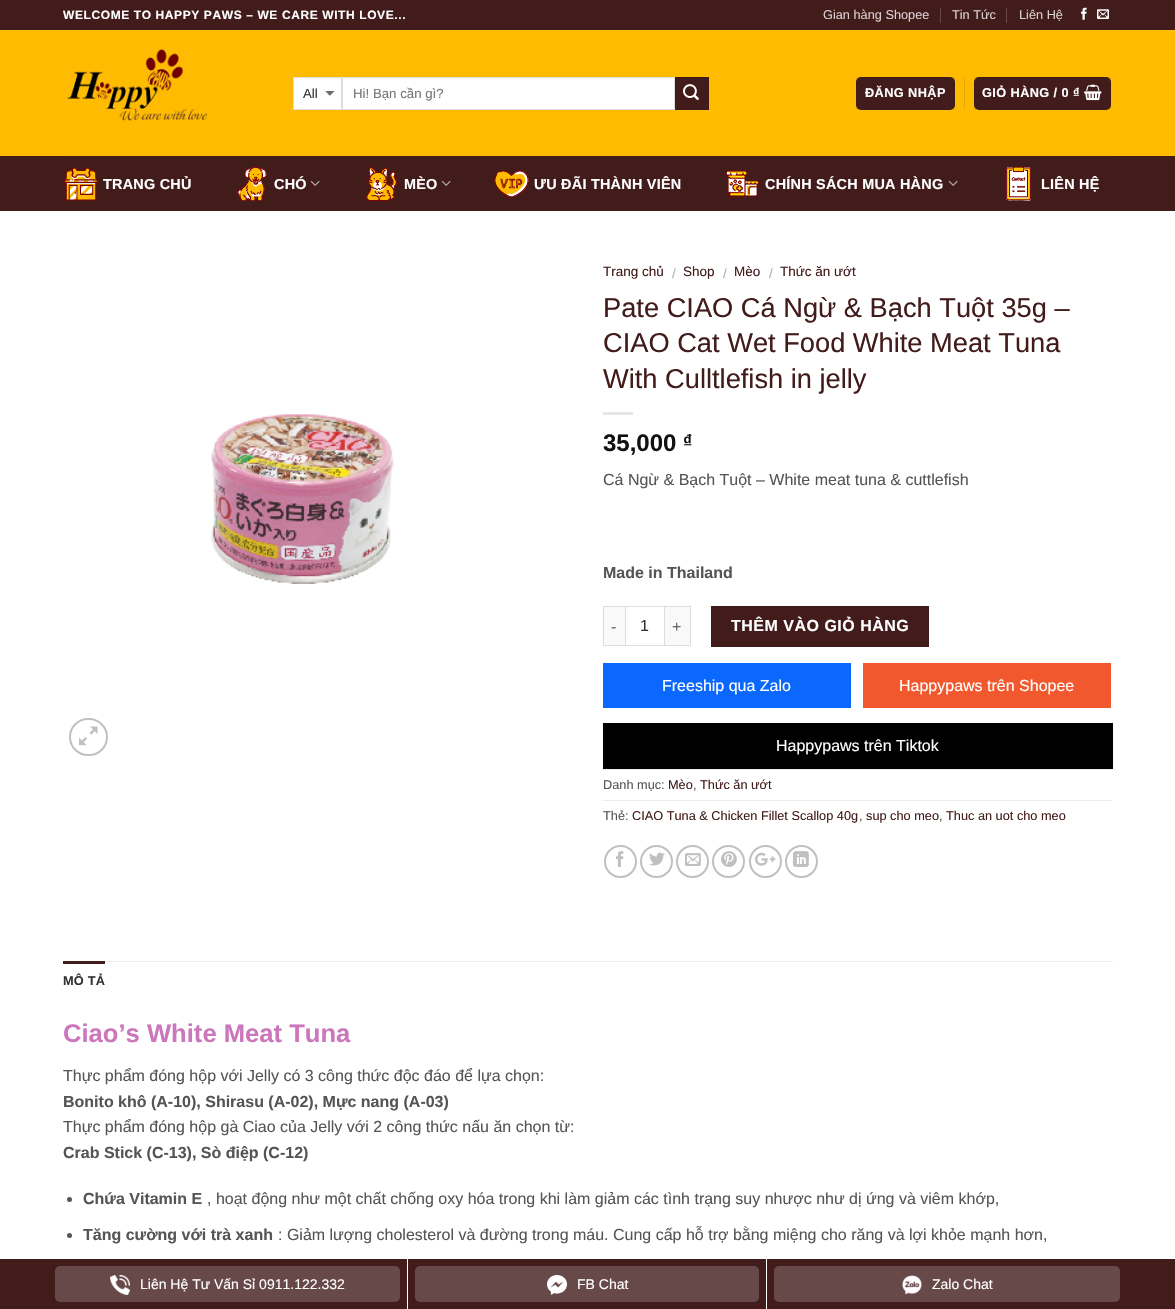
void draw(SkCanvas* canvas) {
	SkPaint fill;
	fill.setAntiAlias(true);
	auto makeFont = [&](const char* family, int weight, float size, bool italic = false) {
		SkFontStyle style(weight, SkFontStyle::kNormal_Width,
			italic ? SkFontStyle::kItalic_Slant : SkFontStyle::kUpright_Slant);
		SkFont result(fontMgr->matchFamilyStyle(family, style), size);
		result.setSubpixel(true);
		return result;
	};
	auto text = [&](const char* s, float x, float y, const SkFont& font) {
		canvas->drawString(s, x, y, font, fill);
	};
	auto spacedText = [&](const char* s, float x, float y, const SkFont& font, const SkPaint& ink, float letter, float word) {
		std::vector<SkGlyphID> glyphs(font.countText(s, strlen(s), SkTextEncoding::kUTF8));
		std::vector<float> xs(glyphs.size());
		font.textToGlyphs(s, strlen(s), SkTextEncoding::kUTF8, glyphs);
		font.getXPos(glyphs, xs, x);
		float extra = 0;
		for (size_t i = 0; i < glyphs.size(); i++) {
			xs[i] += extra;
			extra += letter + word * (glyphs[i] == font.unicharToGlyph(' '));
		}
		canvas->drawTextBlob(SkTextBlob::MakeFromPosHGlyphs(glyphs, xs, y, font), 0, 0, ink);
	};
	auto box = [&](float l, float t, float r, float b) {
		canvas->drawRect(SkRect::MakeLTRB(l, t, r, b), fill);
	};
	auto roundBox = [&](float l, float t, float r, float b, float radius) {
		canvas->drawRoundRect(SkRect::MakeLTRB(l, t, r, b), radius, radius, fill);
	};
	auto picture = [&](const char* path, float l, float t, float r, float b) {
		auto image = SkImages::DeferredFromEncodedData(SkData::MakeFromFileName(path));
		canvas->drawImageRect(image, SkRect::MakeLTRB(l, t, r, b), SkSamplingOptions());
	};
	canvas->clear(0xFFFFFFFF);
	fill.setColor(0xFF421B1B);
	box(0, 0, 1175, 30);
	fill.setColor(0xFF684949);
	box(940, 8, 941, 23);
	box(1006, 8, 1007, 23);
	picture("image0.png", 1081, 7, 1087, 20);
	picture("image1.png", 1097, 9, 1109, 19);
	fill.setColor(0xFFFFBB00);
	box(0, 30, 1175, 156);
	picture("image2.png", 67, 49, 208, 121);
	fill.setColor(0xFFFFFFFF);
	box(294, 78, 341, 109);
	picture("image3.png", 325, 91, 335, 96);
	fill.setStyle(SkPaint::kStroke_Style);
	fill.setStrokeWidth(1);
	fill.setColor(0xFFDDDDDD);
	canvas->drawRect(SkRect::MakeLTRB(293.5f, 77.5f, 341.5f, 109.5f), fill);
	fill.setStyle(SkPaint::kFill_Style);
	fill.setColor(0xFFFFFFFF);
	canvas->drawRect(SkRect::MakeLTRB(342.5f, 77.5f, 674.5f, 109.5f), fill);
	fill.setStyle(SkPaint::kStroke_Style);
	fill.setColor(0xFFDDDDDD);
	canvas->drawRect(SkRect::MakeLTRB(342.5f, 77.5f, 674.5f, 109.5f), fill);
	fill.setStyle(SkPaint::kFill_Style);
	fill.setColor(0xFF421B1B);
	canvas->drawRect(SkRect::MakeLTRB(675.5f, 77.5f, 708.5f, 109.5f), fill);
	fill.setStyle(SkPaint::kStroke_Style);
	fill.setColor(0xFF3F1A1A);
	canvas->drawRect(SkRect::MakeLTRB(675.5f, 77.5f, 708.5f, 109.5f), fill);
	picture("image4.png", 683, 84, 699, 100);
	fill.setStyle(SkPaint::kFill_Style);
	fill.setColor(0xFF421B1B);
	roundBox(856, 77, 955, 110, 5);
	fill.setStyle(SkPaint::kStroke_Style);
	fill.setColor(0x0D000000);
	canvas->drawRect(SkRect::MakeLTRB(856.5f, 77.5f, 954.5f, 109.5f), fill);
	fill.setStyle(SkPaint::kFill_Style);
	fill.setColor(0xFFE6A800);
	box(964, 78, 965, 108);
	fill.setColor(0xFF421B1B);
	roundBox(974, 77, 1111, 110, 5);
	fill.setStyle(SkPaint::kStroke_Style);
	fill.setColor(0x0D000000);
	canvas->drawRect(SkRect::MakeLTRB(974.5f, 77.5f, 1110.5f, 109.5f), fill);
	picture("image5.png", 1084, 84, 1102, 101);
	fill.setStyle(SkPaint::kFill_Style);
	fill.setColor(0xFF421B1B);
	box(0, 156, 1175, 211);
	fill.setColor(0xFF442121);
	box(63, 156, 1113, 157);
	picture("image6.png", 63, 167, 98, 201);
	picture("image7.png", 237, 166, 267, 201);
	picture("image8.png", 310, 180, 320, 186);
	picture("image9.png", 366, 167, 397, 201);
	picture("image8.png", 441, 180, 451, 186);
	picture("image10.png", 494, 170, 529, 198);
	picture("image11.png", 725, 170, 760, 197);
	picture("image8.png", 948, 180, 958, 186);
	picture("image12.png", 1006, 167, 1031, 201);
	picture("image13.png", 211, 414, 394, 584);
	fill.setStyle(SkPaint::kStroke_Style);
	fill.setStrokeWidth(2);
	fill.setColor(0xFFC0C0C0);
	canvas->drawRoundRect(SkRect::MakeLTRB(70, 719, 107, 755), 18, 18, fill);
	picture("image14.png", 79, 726, 98, 746);
	fill.setStyle(SkPaint::kFill_Style);
	fill.setColor(0xFFE6E6E6);
	box(603, 412, 633, 415);
	fill.setColor(0xFFF9F9F9);
	box(604, 607, 625, 645);
	fill.setColor(0xFFDDDDDD);
	box(603, 606, 625, 607);
	box(603, 645, 625, 646);
	box(603, 606, 604, 646);
	fill.setStyle(SkPaint::kStroke_Style);
	fill.setStrokeWidth(1);
	canvas->drawRect(SkRect::MakeLTRB(625.5f, 606.5f, 664.5f, 645.5f), fill);
	fill.setStyle(SkPaint::kFill_Style);
	fill.setColor(0xFFF9F9F9);
	box(665, 607, 690, 645);
	fill.setColor(0xFFDDDDDD);
	box(665, 606, 691, 607);
	box(690, 606, 691, 646);
	box(665, 645, 691, 646);
	fill.setColor(0xFF421B1B);
	canvas->drawRect(SkRect::MakeLTRB(711.5f, 606.5f, 928.5f, 646.5f), fill);
	fill.setStyle(SkPaint::kStroke_Style);
	fill.setColor(0xFF3F1A1A);
	canvas->drawRect(SkRect::MakeLTRB(711.5f, 606.5f, 928.5f, 646.5f), fill);
	fill.setStyle(SkPaint::kFill_Style);
	fill.setColor(0xFF0A68FE);
	box(603, 663, 851, 708);
	fill.setColor(0xFFF1582E);
	box(863, 663, 1111, 708);
	fill.setColor(0xFF000000);
	box(603, 723, 1113, 769);
	fill.setStyle(SkPaint::kStroke_Style);
	fill.setColor(0xFFDDDDDD);
	fill.setPathEffect(SkDashPathEffect::Make({{1, 1}}, 0));
	canvas->drawPath(SkPathBuilder().moveTo(603, 769.5f).lineTo(1113, 769.5f).detach(), fill);
	fill.setPathEffect(nullptr);
	fill.setPathEffect(SkDashPathEffect::Make({{1, 1}}, 0));
	canvas->drawPath(SkPathBuilder().moveTo(603, 800.5f).lineTo(1113, 800.5f).detach(), fill);
	fill.setPathEffect(nullptr);
	fill.setStrokeWidth(2);
	fill.setColor(0xFFC0C0C0);
	canvas->drawCircle(620.5f, 861.5f, 15.5f, fill);
	picture("image15.png", 616, 851, 624, 867);
	canvas->drawCircle(656.5f, 861.5f, 15.5f, fill);
	picture("image16.png", 649, 852, 665, 866);
	canvas->drawCircle(692.5f, 861.5f, 15.5f, fill);
	picture("image17.png", 685, 853, 701, 866);
	canvas->drawCircle(728.5f, 861.5f, 15.5f, fill);
	picture("image18.png", 721, 851, 737, 867);
	canvas->drawCircle(765.5f, 861.5f, 15.5f, fill);
	picture("image19.png", 755, 852, 776, 866);
	canvas->drawCircle(801.5f, 861.5f, 15.5f, fill);
	picture("image20.png", 793, 851, 809, 867);
	fill.setStyle(SkPaint::kFill_Style);
	fill.setColor(0xFFECECEC);
	box(105, 961, 1113, 962);
	fill.setColor(0xFF421B1B);
	box(63, 961, 105, 964);
	fill.setColor(0xFF555555);
	canvas->drawCircle(69.5f, 1199.5f, 2.5f, fill);
	canvas->drawCircle(69.5f, 1235.5f, 2.5f, fill);
	fill.setColor(0xFF421B1B);
	box(0, 1259, 1175, 1309);
	fill.setColor(0xFF684949);
	roundBox(55, 1266, 400, 1302, 5);
	picture("image21.png", 110, 1275, 130, 1295);
	fill.setColor(0xFFFFFFFF);
	box(766, 1259, 767, 1309);
	box(407, 1259, 408, 1309);
	fill.setColor(0xFF684949);
	roundBox(415, 1266, 759, 1302, 5);
	picture("image22.png", 547, 1275, 567, 1295);
	roundBox(774, 1266, 1120, 1302, 5);
	picture("image23.png", 902, 1275, 922, 1295);
	auto font1 = makeFont("Liberation Sans", 700, 12);
	fill.setColor(0xFFFFFFFF);
	spacedText("WELCOME TO HAPPY PAWS – WE CARE WITH LOVE...", 63, 19, font1, fill, 0.6f, 0);
	auto font2 = makeFont("Liberation Sans", 400, 12.75f);
	fill.setColor(0xFFD9D1D1);
	text("Gian hàng Shopee", 823, 19, font2);
	text("Tin Tức", 952, 19, font2);
	text("Liên Hệ", 1019, 19, font2);
	auto font3 = makeFont("Liberation Sans", 400, 13.25f);
	fill.setColor(0xFF333333);
	text("All", 303, 98, font3);
	fill.setColor(0xFF757575);
	text("Hi! Bạn cần gì?", 353, 98, font3);
	auto font4 = makeFont("Liberation Sans", 700, 12.75f);
	fill.setColor(0xFFFFFFFF);
	spacedText("ĐĂNG NHẬP", 865, 97, font4, fill, 0.4f, 0);
	spacedText("GIỎ HÀNG / 0 ₫", 982, 97, font4, fill, 0.4f, 0);
	auto font5 = makeFont("Liberation Sans", 700, 14.4f);
	spacedText("TRANG CHỦ", 103, 189, font5, fill, 0.25f, 0);
	spacedText("CHÓ", 274, 189, font5, fill, 0.25f, 0);
	spacedText("MÈO", 404, 189, font5, fill, 0.25f, 0);
	spacedText("ƯU ĐÃI THÀNH VIÊN", 534, 189, font5, fill, 0.25f, 0);
	spacedText("CHÍNH SÁCH MUA HÀNG", 765, 189, font5, fill, 0.25f, 0);
	spacedText("LIÊN HỆ", 1041, 189, font5, fill, 0.25f, 0);
	auto font6 = makeFont("Liberation Sans", 400, 13.5f);
	fill.setColor(0xFF421B1B);
	text("Trang chủ", 603, 276, font6);
	fill.setColor(0xFFB2B2B2);
	text("/", 672, 278, font6);
	fill.setColor(0xFF421B1B);
	text("Shop", 683, 276, font6);
	fill.setColor(0xFFB2B2B2);
	text("/", 723, 278, font6);
	fill.setColor(0xFF421B1B);
	text("Mèo", 734, 276, font6);
	fill.setColor(0xFFB2B2B2);
	text("/", 769, 278, font6);
	fill.setColor(0xFF421B1B);
	text("Thức ăn ướt", 780, 276, font6);
	auto font7 = makeFont("Liberation Sans", 400, 27.25f);
	text("Pate CIAO Cá Ngừ & Bạch Tuột 35g –", 603, 317, font7);
	text("CIAO Cat Wet Food White Meat Tuna", 603, 352, font7);
	text("With Culltlefish in jelly", 603, 388, font7);
	auto font8 = makeFont("Liberation Sans", 700, 24);
	fill.setColor(0xFF111111);
	text("35,000", 603, 451, font8);
	auto font9 = makeFont("Liberation Sans", 700, 18);
	text("₫", 683, 447, font9);
	auto font10 = makeFont("Liberation Sans", 400, 16);
	fill.setColor(0xFF555555);
	text("Cá Ngừ & Bạch Tuột – White meat tuna & cuttlefish", 603, 485, font10);
	auto font11 = makeFont("Liberation Sans", 700, 16);
	text("Made in Thailand", 603, 578, font11);
	fill.setColor(0xFF666666);
	text("-", 611, 632, font10);
	fill.setColor(0xFF333333);
	text("1", 640, 631, font10);
	fill.setColor(0xFF666666);
	text("+", 672, 632, font10);
	fill.setColor(0xFFFFFFFF);
	spacedText("THÊM VÀO GIỎ HÀNG", 731, 631, font11, fill, 0.5f, 0);
	text("Freeship qua Zalo", 662, 691, font10);
	text("Happypaws trên Shopee", 899, 691, font10);
	text("Happypaws trên Tiktok", 776, 751, font10);
	fill.setColor(0xFF555555);
	text("Danh mục:", 603, 789, font2);
	fill.setColor(0xFF421B1B);
	text("Mèo", 668, 789, font2);
	fill.setColor(0xFF555555);
	text(",", 693, 789, font2);
	fill.setColor(0xFF421B1B);
	text("Thức ăn ướt", 700, 789, font2);
	fill.setColor(0xFF555555);
	text("Thẻ:", 603, 820, font2);
	fill.setColor(0xFF421B1B);
	text("CIAO Tuna & Chicken Fillet Scallop 40g", 632, 820, font2);
	fill.setColor(0xFF555555);
	text(",", 859, 820, font2);
	fill.setColor(0xFF421B1B);
	text("sup cho meo", 866, 820, font2);
	fill.setColor(0xFF555555);
	text(",", 939, 820, font2);
	fill.setColor(0xFF421B1B);
	text("Thuc an uot cho meo", 946, 820, font2);
	fill.setColor(0xFF333333);
	spacedText("MÔ TẢ", 63, 985, font4, fill, 0.25f, 0);
	auto font12 = makeFont("Liberation Sans", 700, 25.6f);
	fill.setColor(0xFFCC76BC);
	text("Ciao’s White Meat Tuna", 63, 1042, font12);
	fill.setColor(0xFF555555);
	text("Thực phẩm đóng hộp với Jelly có 3 công thức độc đáo để lựa chọn:", 63, 1081, font10);
	text("Bonito khô (A-10), Shirasu (A-02), Mực nang (A-03)", 63, 1107, font11);
	text("Thực phẩm đóng hộp gà Ciao của Jelly với 2 công thức nấu ăn chọn từ:", 63, 1132, font10);
	text("Crab Stick (C-13), Sò điệp (C-12)", 63, 1158, font11);
	text("Chứa Vitamin E", 83, 1204, font11);
	text(", hoạt động như một chất chống oxy hóa trong khi làm giảm các tình trạng suy nhược như dị ứng và viêm khớp,", 207, 1204, font10);
	text("Tăng cường với trà xanh", 83, 1240, font11);
	text(": Giảm lượng cholesterol và đường trong máu. Cung cấp hỗ trợ bằng miệng cho răng và lợi khỏe mạnh hơn,", 278, 1240, font10);
	auto font13 = makeFont("Liberation Sans", 400, 14);
	fill.setColor(0xFFFFFFFF);
	text("Liên Hệ Tư Vấn Sỉ 0911.122.332", 140, 1289, font13);
	text("FB Chat", 577, 1289, font13);
	text("Zalo Chat", 932, 1289, font13);
}
